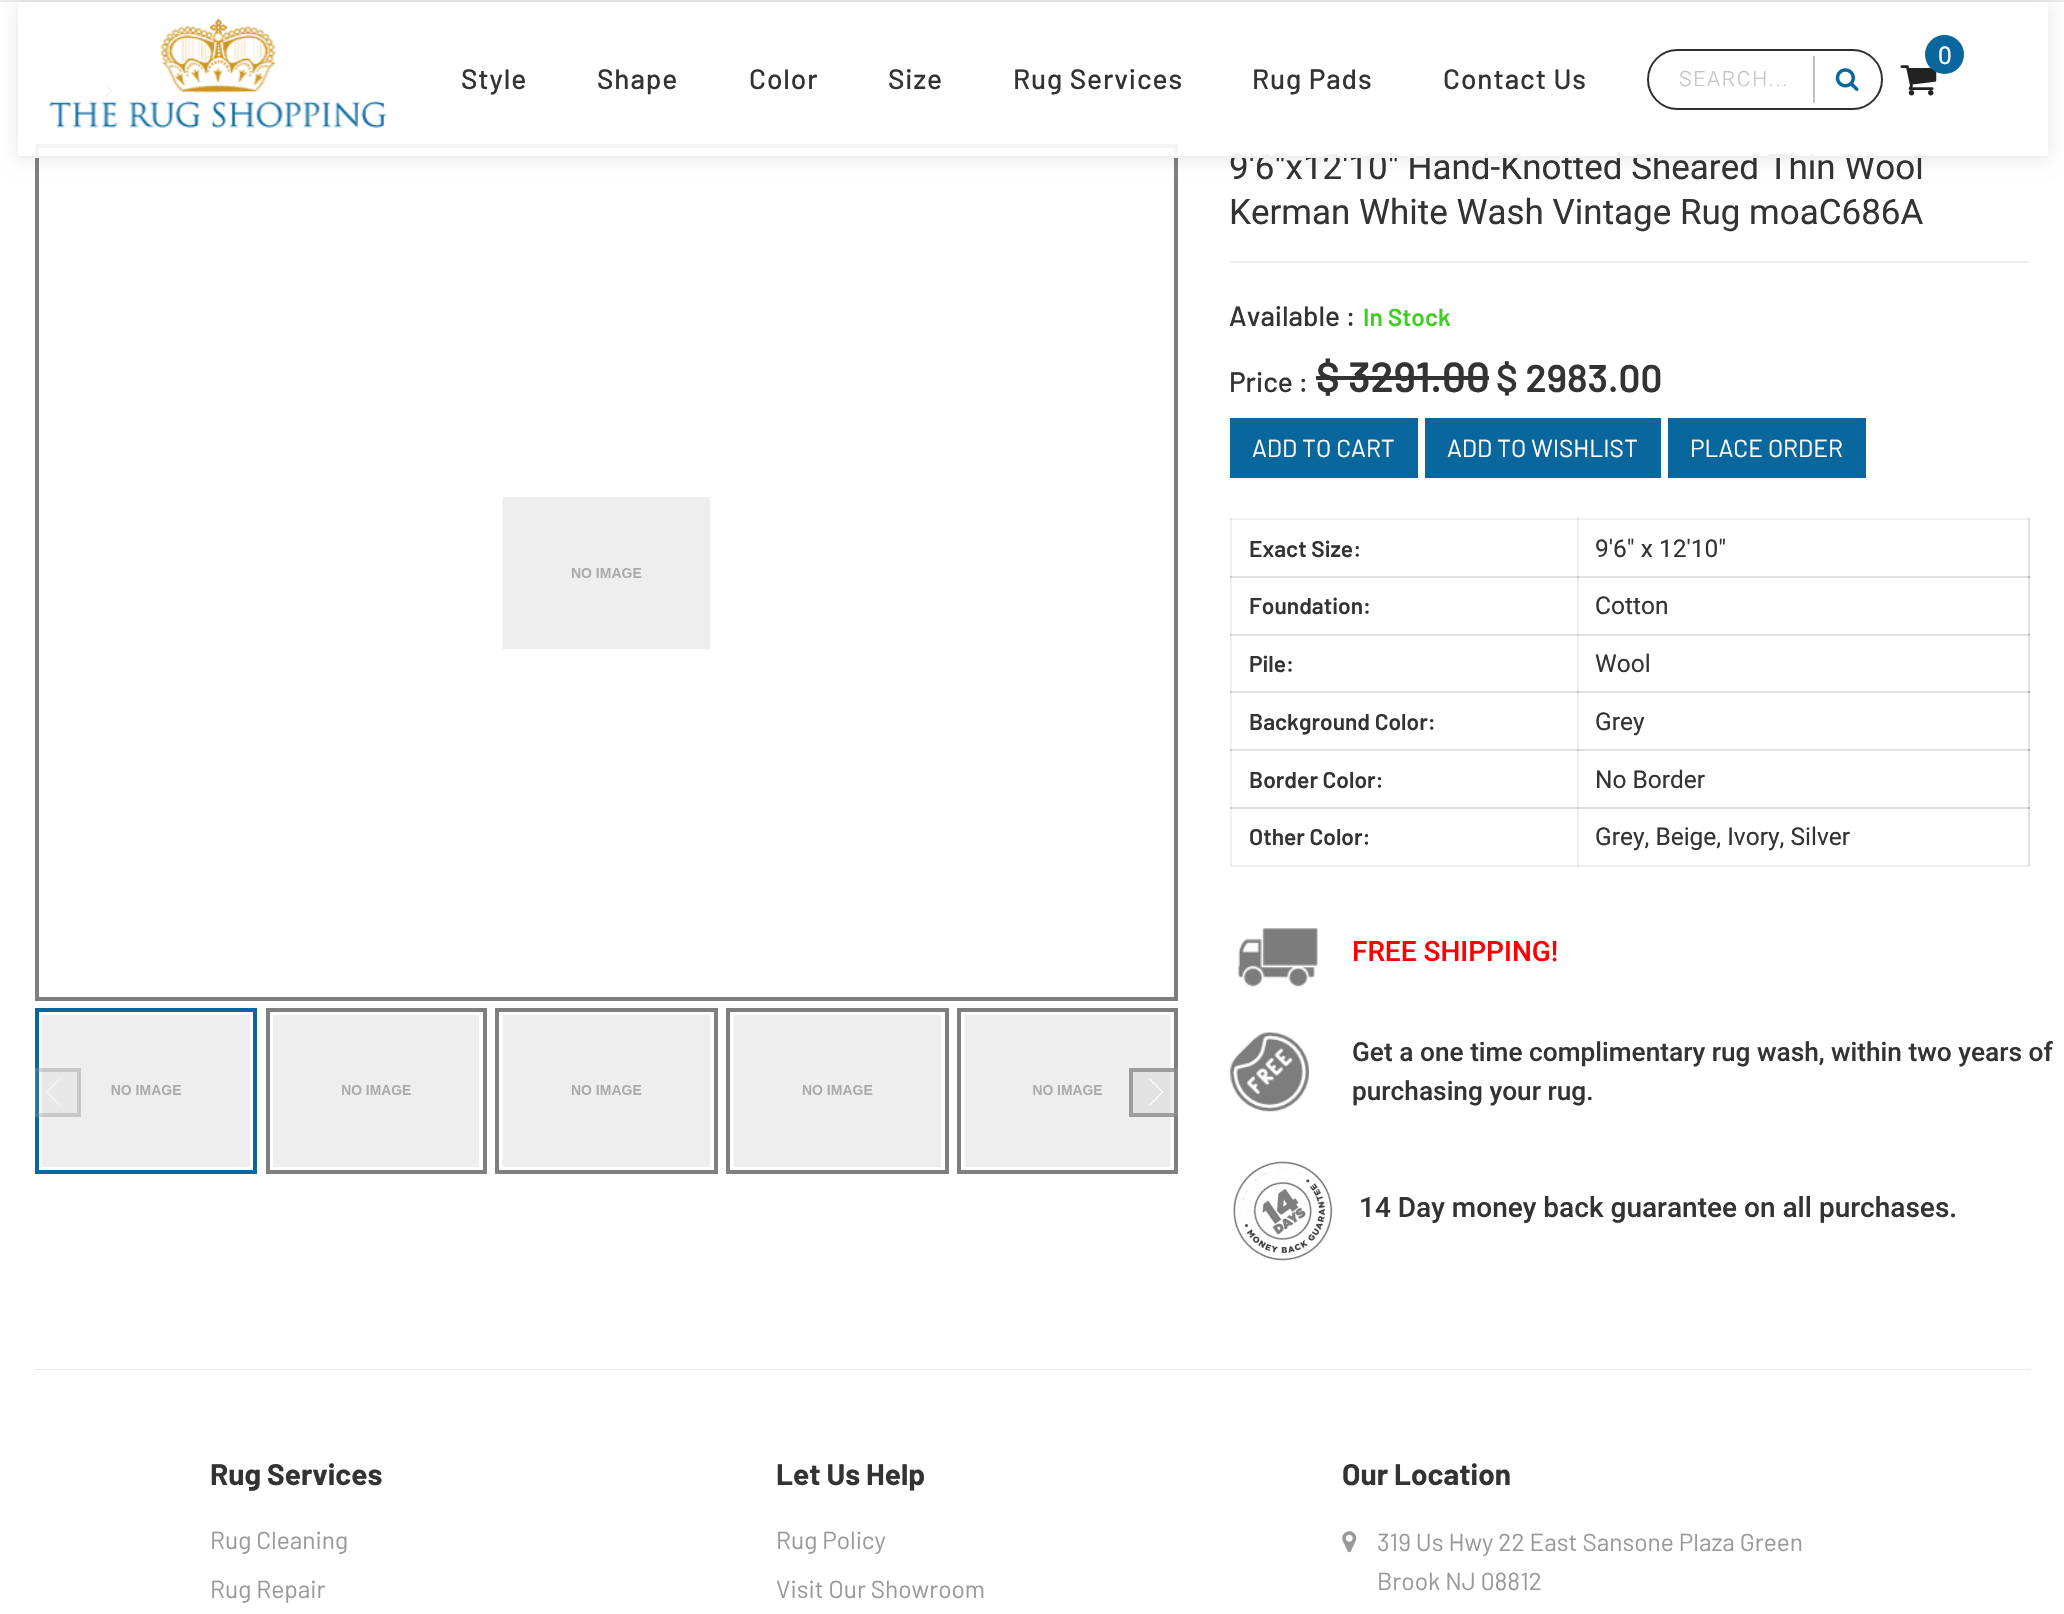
void draw(SkCanvas* canvas) {
	SkPaint fill;
	fill.setAntiAlias(true);
	auto makeFont = [&](const char* family, int weight, float size, bool italic = false) {
		SkFontStyle style(weight, SkFontStyle::kNormal_Width,
			italic ? SkFontStyle::kItalic_Slant : SkFontStyle::kUpright_Slant);
		SkFont result(fontMgr->matchFamilyStyle(family, style), size);
		result.setSubpixel(true);
		return result;
	};
	auto text = [&](const char* s, float x, float y, const SkFont& font) {
		canvas->drawString(s, x, y, font, fill);
	};
	auto spacedText = [&](const char* s, float x, float y, const SkFont& font, const SkPaint& ink, float letter, float word) {
		std::vector<SkGlyphID> glyphs(font.countText(s, strlen(s), SkTextEncoding::kUTF8));
		std::vector<float> xs(glyphs.size());
		font.textToGlyphs(s, strlen(s), SkTextEncoding::kUTF8, glyphs);
		font.getXPos(glyphs, xs, x);
		float extra = 0;
		for (size_t i = 0; i < glyphs.size(); i++) {
			xs[i] += extra;
			extra += letter + word * (glyphs[i] == font.unicharToGlyph(' '));
		}
		canvas->drawTextBlob(SkTextBlob::MakeFromPosHGlyphs(glyphs, xs, y, font), 0, 0, ink);
	};
	auto box = [&](float l, float t, float r, float b) {
		canvas->drawRect(SkRect::MakeLTRB(l, t, r, b), fill);
	};
	auto picture = [&](const char* path, float l, float t, float r, float b) {
		auto image = SkImages::DeferredFromEncodedData(SkData::MakeFromFileName(path));
		canvas->drawImageRect(image, SkRect::MakeLTRB(l, t, r, b), SkSamplingOptions());
	};
	canvas->clear(0xFFFFFFFF);
	fill.setColor(0xFFF0F0F0);
	box(1577, 518, 1579, 866);
	box(1230, 518, 1232, 866);
	fill.setColor(0xFFE2E2E2);
	box(2028, 518, 2030, 809);
	fill.setColor(0xFFF0F0F0);
	box(1230, 865, 2030, 867);
	fill.setColor(0xFFE2E2E2);
	box(1577, 865, 1579, 866);
	box(1230, 865, 1232, 866);
	box(2028, 807, 2030, 866);
	fill.setColor(0xFFD4D4D4);
	box(2028, 865, 2030, 866);
	fill.setColor(0xFFEBEBEB);
	box(0, 0, 2064, 2);
	box(35, 1369, 2030, 1370);
	picture("image3.png", 105, 84, 113, 97);
	picture("image4.png", 479, 84, 487, 97);
	fill.setStyle(SkPaint::kStroke_Style);
	fill.setStrokeWidth(4);
	fill.setColor(0xFF7F7F7F);
	canvas->drawRect(SkRect::MakeLTRB(37, 146, 1176, 999), fill);
	picture("image5.png", 502, 497, 710, 649);
	fill.setColor(0xFF09679D);
	canvas->drawRect(SkRect::MakeLTRB(37, 1010, 255, 1172), fill);
	picture("image6.png", 42, 1015, 250, 1167);
	fill.setColor(0xFF7F7F7F);
	canvas->drawRect(SkRect::MakeLTRB(268, 1010, 485, 1172), fill);
	picture("image7.png", 273, 1015, 479, 1167);
	canvas->drawRect(SkRect::MakeLTRB(497, 1010, 716, 1172), fill);
	picture("image8.png", 502, 1015, 710, 1167);
	canvas->drawRect(SkRect::MakeLTRB(728, 1010, 947, 1172), fill);
	picture("image8.png", 733, 1015, 941, 1167);
	canvas->drawRect(SkRect::MakeLTRB(959, 1010, 1176, 1172), fill);
	picture("image9.png", 964, 1015, 1171, 1167);
	fill.setStyle(SkPaint::kFill_Style);
	fill.setColor(0x26CCCCCC);
	box(35, 1068, 81, 1117);
	canvas->save();
	canvas->clipRect(SkRect::MakeLTRB(35, 1008, 1178, 1174));
	fill.setStyle(SkPaint::kStroke_Style);
	fill.setColor(0x4D7F7F7F);
	canvas->drawRect(SkRect::MakeLTRB(34, 1070, 79, 1115), fill);
	canvas->restore();
	fill.setStyle(SkPaint::kFill_Style);
	fill.setColor(0xFFF3F3F3);
	canvas->drawPath(SkPathBuilder().moveTo(59, 1078.5f).lineTo(60.5f, 1079.5f).lineTo(48, 1092).lineTo(60.5f, 1104.5f).lineTo(59, 1105.5f).lineTo(46, 1092.5f).lineTo(46, 1091.5f).close().detach(), fill);
	fill.setColor(0x59CCCCCC);
	box(1129, 1068, 1178, 1117);
	fill.setStyle(SkPaint::kStroke_Style);
	fill.setColor(0xB37F7F7F);
	canvas->drawRect(SkRect::MakeLTRB(1131, 1070, 1176, 1115), fill);
	fill.setStyle(SkPaint::kFill_Style);
	fill.setColor(0xFFFAFAFA);
	canvas->drawPath(SkPathBuilder().moveTo(1163, 1091.5f).lineTo(1163, 1092.5f).lineTo(1150, 1105.5f).lineTo(1149, 1104.5f).lineTo(1161.5f, 1092).lineTo(1149, 1079.5f).lineTo(1150, 1078.5f).close().detach(), fill);
	fill.setColor(0xFFEFEFEF);
	box(1230, 261, 2030, 263);
	fill.setColor(0xFF333333);
	box(1316, 376, 1489, 380);
	fill.setColor(0xFF09679D);
	box(1230, 418, 1418, 478);
	box(1425, 418, 1661, 478);
	box(1668, 418, 1866, 478);
	fill.setColor(0xFFF0F0F0);
	box(1230, 518, 2030, 520);
	fill.setColor(0xFFE2E2E2);
	box(1577, 518, 1579, 520);
	box(1230, 518, 1232, 520);
	fill.setColor(0xFFD4D4D4);
	box(2028, 518, 2030, 520);
	fill.setColor(0xFFE2E2E2);
	box(1230, 576, 2030, 578);
	fill.setColor(0xFFC7C7C7);
	box(1577, 576, 1579, 578);
	box(1230, 576, 1232, 578);
	fill.setColor(0xFFB0B0B0);
	box(2028, 576, 2030, 578);
	fill.setColor(0xFFE2E2E2);
	box(1230, 634, 2030, 636);
	fill.setColor(0xFFD4D4D4);
	box(1577, 635, 1579, 636);
	fill.setColor(0xFFC7C7C7);
	box(1577, 634, 1579, 635);
	fill.setColor(0xFFD4D4D4);
	box(1230, 635, 1232, 636);
	fill.setColor(0xFFC7C7C7);
	box(1230, 634, 1232, 635);
	box(2028, 635, 2030, 636);
	fill.setColor(0xFFB0B0B0);
	box(2028, 634, 2030, 635);
	fill.setColor(0xFFE2E2E2);
	box(1230, 691, 2030, 693);
	fill.setColor(0xFFC7C7C7);
	box(1577, 691, 1579, 693);
	box(1230, 691, 1232, 693);
	fill.setColor(0xFFB0B0B0);
	box(2028, 691, 2030, 693);
	fill.setColor(0xFFE2E2E2);
	box(1230, 749, 2030, 751);
	fill.setColor(0xFFC7C7C7);
	box(1577, 749, 1579, 751);
	box(1230, 749, 1232, 751);
	fill.setColor(0xFFB0B0B0);
	box(2028, 749, 2030, 751);
	fill.setColor(0xFFE2E2E2);
	box(1230, 807, 2030, 809);
	fill.setColor(0xFFC7C7C7);
	box(1577, 807, 1579, 809);
	box(1230, 807, 1232, 809);
	fill.setColor(0xFFB0B0B0);
	box(2028, 807, 2030, 809);
	picture("image10.png", 1238, 928, 1318, 987);
	picture("image11.png", 1230, 1032, 1309, 1112);
	picture("image12.png", 1233, 1161, 1333, 1261);
	picture("image13.png", 1342, 1531, 1357, 1553);
	auto font1 = makeFont("Roboto", 400, 35);
	fill.setColor(0xFF333333);
	text("9'6\"x12'10\" Hand-Knotted Sheared Thin Wool", 1229, 179, font1);
	fill.setColor(0xEBFFFFFF);
	box(35, 84, 1922, 158);
	canvas->save();
	canvas->clipPath(SkPathBuilder(SkPathFillType::kEvenOdd).moveTo(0, 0).lineTo(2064, 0).lineTo(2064, 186).lineTo(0, 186).close().moveTo(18, 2).lineTo(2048, 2).lineTo(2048, 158).lineTo(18, 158).close().detach(), true);
	fill.setColor(0x1A000000);
	fill.setMaskFilter(SkMaskFilter::MakeBlur(kNormal_SkBlurStyle, 9));
	canvas->drawRect(SkRect::MakeLTRB(18, 2, 2048, 158), fill);
	fill.setMaskFilter(nullptr);
	canvas->restore();
	picture("image1.png", 1900, 65, 1937, 96);
	fill.setColor(0xFF09679D);
	canvas->drawCircle(1944.5f, 54.5f, 19.5f, fill);
	auto font2 = makeFont("Roboto", 400, 24.5f);
	fill.setColor(0xFFFFFFFF);
	text("0", 1938, 64, font2);
	fill.setStyle(SkPaint::kStroke_Style);
	fill.setStrokeWidth(2);
	fill.setColor(0xFF2F2F2F);
	canvas->drawRoundRect(SkRect::MakeLTRB(1648, 50, 1882, 109), 29.5f, 29.5f, fill);
	fill.setStyle(SkPaint::kFill_Style);
	fill.setColor(0xFFC2C2C2);
	box(1813, 56, 1815, 103);
	picture("image2.png", 1835, 68, 1859, 91);
	auto font3 = makeFont("Roboto", 300, 21);
	spacedText("SEARCH...", 1679, 86, font3, fill, 1.75f, 0);
	auto font4 = makeFont("Barlow", 500, 28);
	fill.setColor(0xFF333333);
	spacedText("Contact Us", 1443, 89, font4, fill, 0.9f, 0);
	spacedText("Rug Pads", 1252, 89, font4, fill, 0.9f, 0);
	spacedText("Rug Services", 1013, 89, font4, fill, 0.9f, 0);
	spacedText("Size", 888, 89, font4, fill, 0.9f, 0);
	spacedText("Color", 749, 89, font4, fill, 0.9f, 0);
	spacedText("Shape", 597, 89, font4, fill, 0.9f, 0);
	spacedText("Style", 461, 89, font4, fill, 0.9f, 0);
	picture("image0.png", 49, 18, 387, 128);
	fill.setColor(0xFFF0F0F0);
	box(18, 156, 2048, 158);
	fill.setColor(0xFF333333);
	text("Kerman White Wash Vintage Rug moaC686A", 1229, 224, font1);
	text("Available :", 1229, 326, font4);
	auto font5 = makeFont("Barlow", 600, 24.5f);
	fill.setColor(0xFF3CD021);
	text("In Stock", 1363, 326, font5);
	fill.setColor(0xFF333333);
	text("Price :", 1229, 392, font4);
	auto font6 = makeFont("Barlow", 600, 42);
	text("$ 3291.00", 1316, 392, font6);
	auto font7 = makeFont("Barlow", 600, 38.5f);
	text("$ 2983.00", 1496, 392, font7);
	auto font8 = makeFont("Barlow", 400, 24.5f);
	fill.setColor(0xFFFFFFFF);
	text("ADD TO CART", 1252, 457, font8);
	text("ADD TO WISHLIST", 1447, 457, font8);
	text("PLACE ORDER", 1690, 457, font8);
	auto font9 = makeFont("Barlow", 600, 22.75f);
	fill.setColor(0xFF333333);
	text("Exact Size:", 1249, 557, font9);
	text("9'6\" x 12'10\"", 1595, 557, font2);
	text("Foundation:", 1249, 614, font9);
	text("Cotton", 1595, 614, font2);
	text("Pile:", 1249, 672, font9);
	text("Wool", 1595, 672, font2);
	text("Background Color:", 1249, 730, font9);
	text("Grey", 1595, 730, font2);
	text("Border Color:", 1249, 788, font9);
	text("No Border", 1595, 788, font2);
	text("Other Color:", 1249, 845, font9);
	text("Grey, Beige, Ivory, Silver", 1595, 845, font2);
	auto font10 = makeFont("Roboto", 500, 28);
	fill.setColor(0xFFFF0000);
	text("FREE SHIPPING!", 1352, 961, font10);
	auto font11 = makeFont("Roboto", 500, 26.25f);
	fill.setColor(0xFF333333);
	text("Get a one time complimentary rug wash, within two years of", 1352, 1061, font11);
	text("purchasing your rug.", 1352, 1100, font11);
	text("14 Day money back guarantee on all purchases.", 1359, 1217, font10);
	auto font12 = makeFont("Barlow", 700, 29.75f);
	text("Rug Services", 210, 1485, font12);
	fill.setColor(0xFF999999);
	text("Rug Cleaning", 210, 1549, font8);
	text("Rug Repair", 210, 1598, font8);
	fill.setColor(0xFF333333);
	text("Let Us Help", 776, 1485, font12);
	fill.setColor(0xFF999999);
	text("Rug Policy", 776, 1549, font8);
	text("Visit Our Showroom", 776, 1598, font8);
	fill.setColor(0xFF333333);
	text("Our Location", 1342, 1485, font12);
	fill.setColor(0xFF999999);
	text("319 Us Hwy 22 East Sansone Plaza Green", 1377, 1551, font8);
	text("Brook NJ 08812", 1377, 1590, font8);
}
